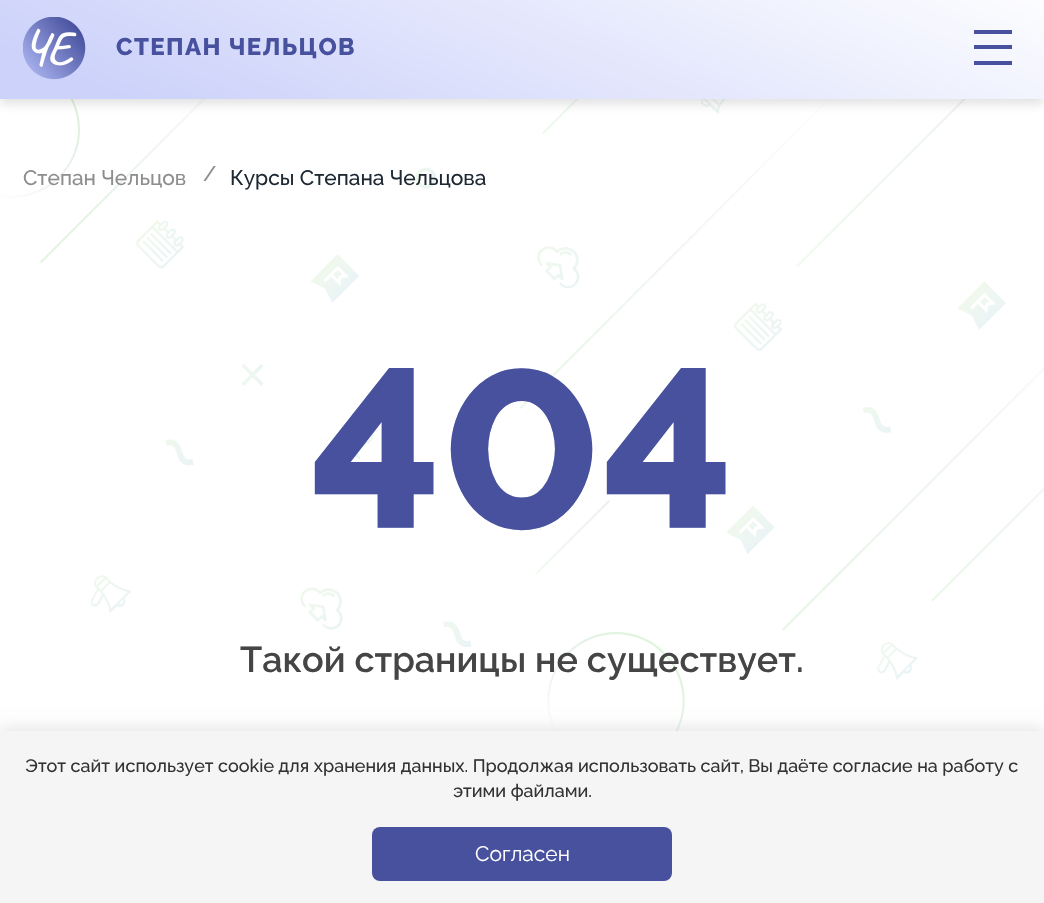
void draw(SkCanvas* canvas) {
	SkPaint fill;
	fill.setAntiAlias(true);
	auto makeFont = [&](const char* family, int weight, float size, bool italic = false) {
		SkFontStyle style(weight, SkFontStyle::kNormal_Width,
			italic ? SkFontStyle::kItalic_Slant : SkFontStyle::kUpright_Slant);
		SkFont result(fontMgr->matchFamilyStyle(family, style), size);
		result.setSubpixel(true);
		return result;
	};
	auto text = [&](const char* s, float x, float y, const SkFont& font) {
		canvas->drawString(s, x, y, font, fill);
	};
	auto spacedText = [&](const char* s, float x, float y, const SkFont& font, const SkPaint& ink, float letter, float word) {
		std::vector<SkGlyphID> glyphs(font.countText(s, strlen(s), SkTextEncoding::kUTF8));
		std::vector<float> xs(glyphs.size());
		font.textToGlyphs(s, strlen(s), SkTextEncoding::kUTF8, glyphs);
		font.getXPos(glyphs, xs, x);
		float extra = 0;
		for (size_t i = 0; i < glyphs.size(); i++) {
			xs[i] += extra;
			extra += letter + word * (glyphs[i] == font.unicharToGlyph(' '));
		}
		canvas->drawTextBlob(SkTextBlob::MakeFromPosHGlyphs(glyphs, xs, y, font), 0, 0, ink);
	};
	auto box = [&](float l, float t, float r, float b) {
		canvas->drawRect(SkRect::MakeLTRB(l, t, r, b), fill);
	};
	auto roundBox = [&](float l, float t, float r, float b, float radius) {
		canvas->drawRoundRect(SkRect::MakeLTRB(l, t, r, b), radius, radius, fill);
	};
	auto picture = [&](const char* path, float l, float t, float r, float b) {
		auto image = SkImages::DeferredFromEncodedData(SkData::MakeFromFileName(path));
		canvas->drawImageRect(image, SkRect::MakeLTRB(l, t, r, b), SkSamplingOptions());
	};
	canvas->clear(0xFFFFFFFF);
	picture("image0.png", 0, 99, 1044, 731);
	fill.setColor(0x26343434);
	fill.setMaskFilter(SkMaskFilter::MakeBlur(kNormal_SkBlurStyle, 5));
	canvas->drawRect(SkRect::MakeLTRB(0, 5, 1044, 104), fill);
	fill.setMaskFilter(nullptr);
	{
		const SkColor colors[] = {0xFFFFFFFF, 0xFFCCD2FA};
		const float stops[] = {0, 0.91f};
		const SkPoint ends[] = {{626, -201}, {428, 276}};
		fill.setShader(SkGradientShader::MakeLinear(ends, colors, stops, 2, SkTileMode::kClamp));
		fill.setAlpha(255);
	}
	box(0, 0, 1044, 99);
	picture("image1.png", 23, 17, 86, 80);
	fill.setShader(nullptr);
	fill.setColor(0xFF47519E);
	box(974, 30, 1012, 34);
	box(974, 45, 1012, 49);
	box(974, 61, 1012, 65);
	fill.setColor(0x1A000000);
	fill.setMaskFilter(SkMaskFilter::MakeBlur(kNormal_SkBlurStyle, 7.5f));
	canvas->drawRect(SkRect::MakeLTRB(0, 728, 1044, 900), fill);
	fill.setMaskFilter(nullptr);
	fill.setColor(0xFFF5F5F5);
	box(0, 731, 1044, 903);
	fill.setColor(0xFF47519E);
	roundBox(372, 827, 672, 881, 8);
	auto font1 = makeFont("Raleway", 800, 24);
	spacedText("СТЕПАН ЧЕЛЬЦОВ", 116, 55, font1, fill, 1.4f, 0);
	auto font2 = makeFont("Raleway", 500, 21);
	fill.setColor(0xFF8E8E8E);
	text("Степан Чельцов", 23, 185, font2);
	text("/", 203, 181, font2);
	fill.setColor(0xFF1E2933);
	text("Курсы Степана Чельцова", 230, 185, font2);
	auto font3 = makeFont("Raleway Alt", 800, 225);
	fill.setColor(0xFF47519E);
	text("404", 309, 528, font3);
	auto font4 = makeFont("Raleway", 600, 36);
	fill.setColor(0xFF454546);
	text("Такой страницы не существует.", 240, 672, font4);
	auto font5 = makeFont("Raleway", 500, 18);
	fill.setColor(0xFF333333);
	text("Этот сайт использует cookie для хранения данных. Продолжая использовать сайт, Вы даёте согласие на работу с", 25, 772, font5);
	text("этими файлами.", 453, 797, font5);
	auto font6 = makeFont("Raleway", 400, 21);
	fill.setColor(0xFFFFFFFF);
	text("Согласен", 475, 861, font6);
}
